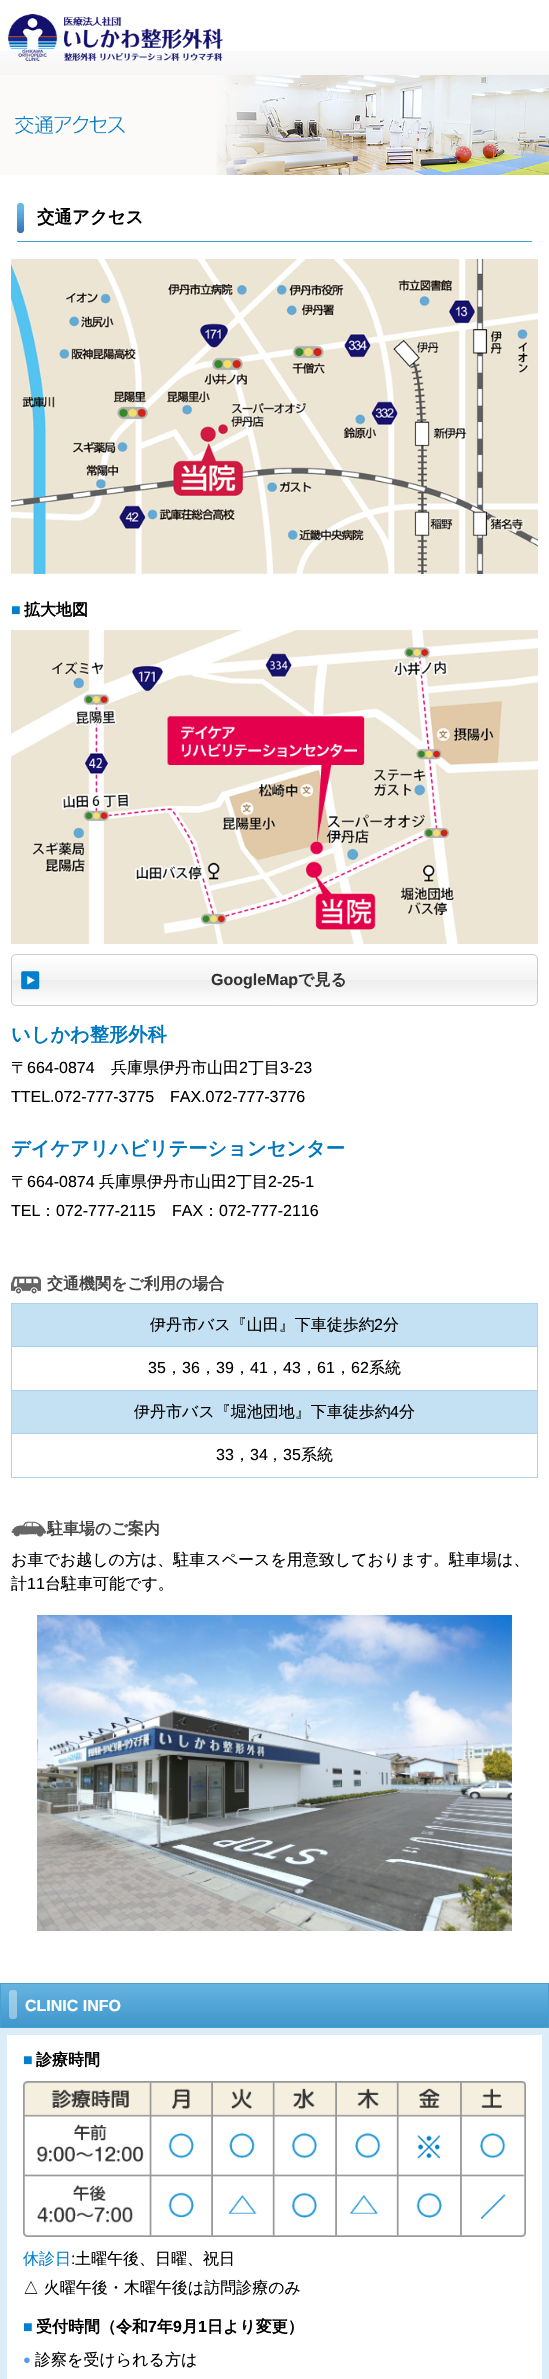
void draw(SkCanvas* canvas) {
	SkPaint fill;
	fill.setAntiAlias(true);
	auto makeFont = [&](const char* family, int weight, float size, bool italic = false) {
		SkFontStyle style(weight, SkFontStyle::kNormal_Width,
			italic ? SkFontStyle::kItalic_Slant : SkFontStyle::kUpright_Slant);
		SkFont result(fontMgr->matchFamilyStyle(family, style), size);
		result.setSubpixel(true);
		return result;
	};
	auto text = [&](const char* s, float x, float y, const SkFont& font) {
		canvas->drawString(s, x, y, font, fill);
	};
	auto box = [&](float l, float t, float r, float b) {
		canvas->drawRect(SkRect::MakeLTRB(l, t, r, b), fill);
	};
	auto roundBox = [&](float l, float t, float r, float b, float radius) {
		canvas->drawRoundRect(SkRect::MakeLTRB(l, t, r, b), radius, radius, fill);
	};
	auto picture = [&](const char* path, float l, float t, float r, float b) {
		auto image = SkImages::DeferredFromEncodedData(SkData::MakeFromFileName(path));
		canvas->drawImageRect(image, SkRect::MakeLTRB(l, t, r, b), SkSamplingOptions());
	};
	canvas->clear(0xFFFFFFFF);
	picture("image0.png", 0, 51, 549, 75);
	picture("image1.png", 8, 14, 223, 61);
	picture("image2.png", 0, 75, 216, 175);
	picture("image3.png", 216, 75, 549, 175);
	picture("image4.png", 15, 115, 125, 134);
	picture("image5.png", 17, 203, 24, 233);
	fill.setColor(0xFF3F9FD8);
	box(17, 241, 532, 242);
	picture("image6.png", 11, 259, 538, 574);
	picture("image7.png", 11, 630, 538, 944);
	canvas->save();
	canvas->clipPath(SkPathBuilder().moveTo(16, 954).lineTo(533, 954).cubicTo(536, 954, 538, 956, 538, 959).lineTo(538, 1001).cubicTo(538, 1004, 536, 1006, 533, 1006).lineTo(16, 1006).cubicTo(13, 1006, 11, 1004, 11, 1001).lineTo(11, 959).cubicTo(11, 956, 13, 954, 16, 954).close().detach(), true);
	{
		const SkColor colors[] = {0xFFFFFFFF, 0xFFF3F3F3, 0xFFEDEDED, 0xFFFFFFFF};
		const float stops[] = {0, 0.5f, 0.51f, 1};
		const SkPoint ends[] = {{275, 955}, {275, 1005}};
		fill.setShader(SkGradientShader::MakeLinear(ends, colors, stops, 4, SkTileMode::kClamp));
		fill.setAlpha(255);
	}
	box(11, 955, 538, 1005);
	canvas->restore();
	fill.setStyle(SkPaint::kStroke_Style);
	fill.setStrokeWidth(1);
	fill.setShader(nullptr);
	fill.setColor(0xFFCCCCCC);
	canvas->drawRoundRect(SkRect::MakeLTRB(11.5f, 954.5f, 537.5f, 1005.5f), 4.5f, 4.5f, fill);
	picture("image8.png", 21, 971, 40, 990);
	picture("image9.png", 11, 1276, 41, 1294);
	fill.setStyle(SkPaint::kFill_Style);
	fill.setColor(0xFFABD3EF);
	box(11, 1303, 538, 1304);
	box(12, 1390, 538, 1391);
	box(12, 1477, 538, 1478);
	box(537, 1303, 538, 1478);
	box(11, 1303, 12, 1478);
	fill.setColor(0xFFC4E1F4);
	box(12, 1304, 537, 1346);
	fill.setColor(0xFFABD3EF);
	box(12, 1346, 537, 1347);
	fill.setColor(0xFFC4E1F4);
	box(12, 1391, 537, 1433);
	fill.setColor(0xFFABD3EF);
	box(12, 1433, 537, 1434);
	picture("image10.png", 11, 1521, 47, 1537);
	picture("image11.png", 37, 1615, 512, 1931);
	{
		const SkColor colors[] = {0xFF66B3E0, 0xFF3F97CC};
		const float stops[] = {0.01f, 0.99f};
		const SkPoint ends[] = {{275, 1984}, {275, 2027}};
		fill.setShader(SkGradientShader::MakeLinear(ends, colors, stops, 2, SkTileMode::kClamp));
		fill.setAlpha(255);
	}
	box(1, 1984, 548, 2027);
	fill.setStyle(SkPaint::kStroke_Style);
	fill.setShader(nullptr);
	fill.setColor(0xFF4A9FD2);
	canvas->drawRect(SkRect::MakeLTRB(0.5f, 1983.5f, 548.5f, 2027.5f), fill);
	fill.setStyle(SkPaint::kFill_Style);
	fill.setColor(0x66FFFFFF);
	roundBox(9, 1990, 17, 2019, 3);
	fill.setStyle(SkPaint::kStroke_Style);
	fill.setStrokeWidth(7);
	fill.setColor(0xFFDAEDF8);
	canvas->drawRect(SkRect::MakeLTRB(3.5f, 2031.5f, 545.5f, 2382.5f), fill);
	picture("image12.png", 23, 2081, 526, 2237);
	auto font1 = makeFont("WenQuanYi Zen Hei", 700, 17.5f);
	fill.setStyle(SkPaint::kFill_Style);
	fill.setColor(0xFF000000);
	text("交通アクセス", 37, 223, font1);
	auto font2 = makeFont("Liberation Sans", 700, 16);
	fill.setColor(0xFF0080CC);
	text("■", 11, 615, font2);
	auto font3 = makeFont("WenQuanYi Zen Hei", 700, 16);
	fill.setColor(0xFF000000);
	text("拡大地図", 24, 615, font3);
	fill.setColor(0xFF333333);
	text("GoogleMap", 211, 985, font2);
	text("で見る", 298, 985, font3);
	auto font4 = makeFont("WenQuanYi Zen Hei", 700, 19.25f);
	fill.setColor(0xFF0076BD);
	text("いしかわ整形外科", 11, 1041, font4);
	auto font5 = makeFont("WenQuanYi Zen Hei", 500, 16);
	fill.setColor(0xFF000000);
	text("〒", 11, 1073, font5);
	auto font6 = makeFont("Liberation Sans", 400, 16);
	text("664-0874", 27, 1073, font6);
	text("兵庫県伊丹市山田", 111, 1073, font5);
	text("2", 239, 1073, font6);
	text("丁目", 248, 1073, font5);
	text("3-23", 280, 1073, font6);
	text("TTEL.072-777-3775", 11, 1102, font6);
	text("FAX.072-777-3776", 170, 1102, font6);
	fill.setColor(0xFF0076BD);
	text("デイケアリハビリテーションセンター", 11, 1155, font4);
	fill.setColor(0xFF000000);
	text("〒", 11, 1187, font5);
	text("664-0874", 27, 1187, font6);
	text("兵庫県伊丹市山田", 99, 1187, font5);
	text("2", 227, 1187, font6);
	text("丁目", 236, 1187, font5);
	text("2-25-1", 268, 1187, font6);
	text("TEL", 11, 1216, font6);
	text("：", 40, 1216, font5);
	text("072-777-2115", 56, 1216, font6);
	text("FAX", 172, 1216, font6);
	text("：", 203, 1216, font5);
	text("072-777-2116", 219, 1216, font6);
	fill.setColor(0xFF454545);
	text("交通機関をご利用の場合", 47, 1289, font3);
	fill.setColor(0xFF000000);
	text("伊丹市バス『山田』下車徒歩約", 150, 1330, font5);
	text("2", 374, 1330, font6);
	text("分", 383, 1330, font5);
	text("35", 148, 1373, font6);
	text("36", 182, 1373, font6);
	text("39", 216, 1373, font6);
	text("41", 250, 1373, font6);
	text("43", 283, 1373, font6);
	text("61", 317, 1373, font6);
	text("62", 351, 1373, font6);
	text("系統", 369, 1373, font5);
	text("，", 166, 1373, font5);
	text("，", 200, 1373, font5);
	text("，", 234, 1373, font5);
	text("，", 267, 1373, font5);
	text("，", 301, 1373, font5);
	text("，", 335, 1373, font5);
	text("伊丹市バス『堀池団地』下車徒歩約", 134, 1417, font5);
	text("4", 390, 1417, font6);
	text("分", 399, 1417, font5);
	text("33", 216, 1460, font6);
	text("，", 234, 1460, font5);
	text("34", 250, 1460, font6);
	text("，", 267, 1460, font5);
	text("35", 283, 1460, font6);
	text("系統", 301, 1460, font5);
	fill.setColor(0xFF454545);
	text("駐車場のご案内", 47, 1534, font3);
	fill.setColor(0xFF000000);
	text("お車でお越しの方は、駐車スペースを用意致しております。駐車場は、", 11, 1565, font5);
	text("計", 11, 1589, font5);
	text("11", 27, 1589, font6);
	text("台駐車可能です。", 45, 1589, font5);
	fill.setColor(0xFFFFFFFF);
	text("CLINIC INFO", 25, 2011, font2);
	fill.setColor(0xFF0080CC);
	text("■", 23, 2065, font2);
	fill.setColor(0xFF000000);
	text("診療時間", 36, 2065, font3);
	fill.setColor(0xFF0080CC);
	text("休診日", 23, 2264, font5);
	fill.setColor(0xFF000000);
	text(":", 71, 2264, font6);
	text("土曜午後、日曜、祝日", 75, 2264, font5);
	text("△ 火曜午後・木曜午後は訪問診療のみ", 23, 2293, font5);
	fill.setColor(0xFF0080CC);
	text("■", 23, 2332, font2);
	fill.setColor(0xFF000000);
	text("受付時間（令和", 36, 2332, font3);
	text("7", 148, 2332, font2);
	text("年", 157, 2332, font3);
	text("9", 173, 2332, font2);
	text("月", 182, 2332, font3);
	text("1", 198, 2332, font2);
	text("日より変更）", 207, 2332, font3);
	auto font7 = makeFont("Liberation Sans", 400, 13);
	fill.setColor(0xFF579BE7);
	text("●", 23, 2364, font7);
	fill.setColor(0xFF000000);
	text("診察を受けられる方は", 35, 2365, font5);
}
